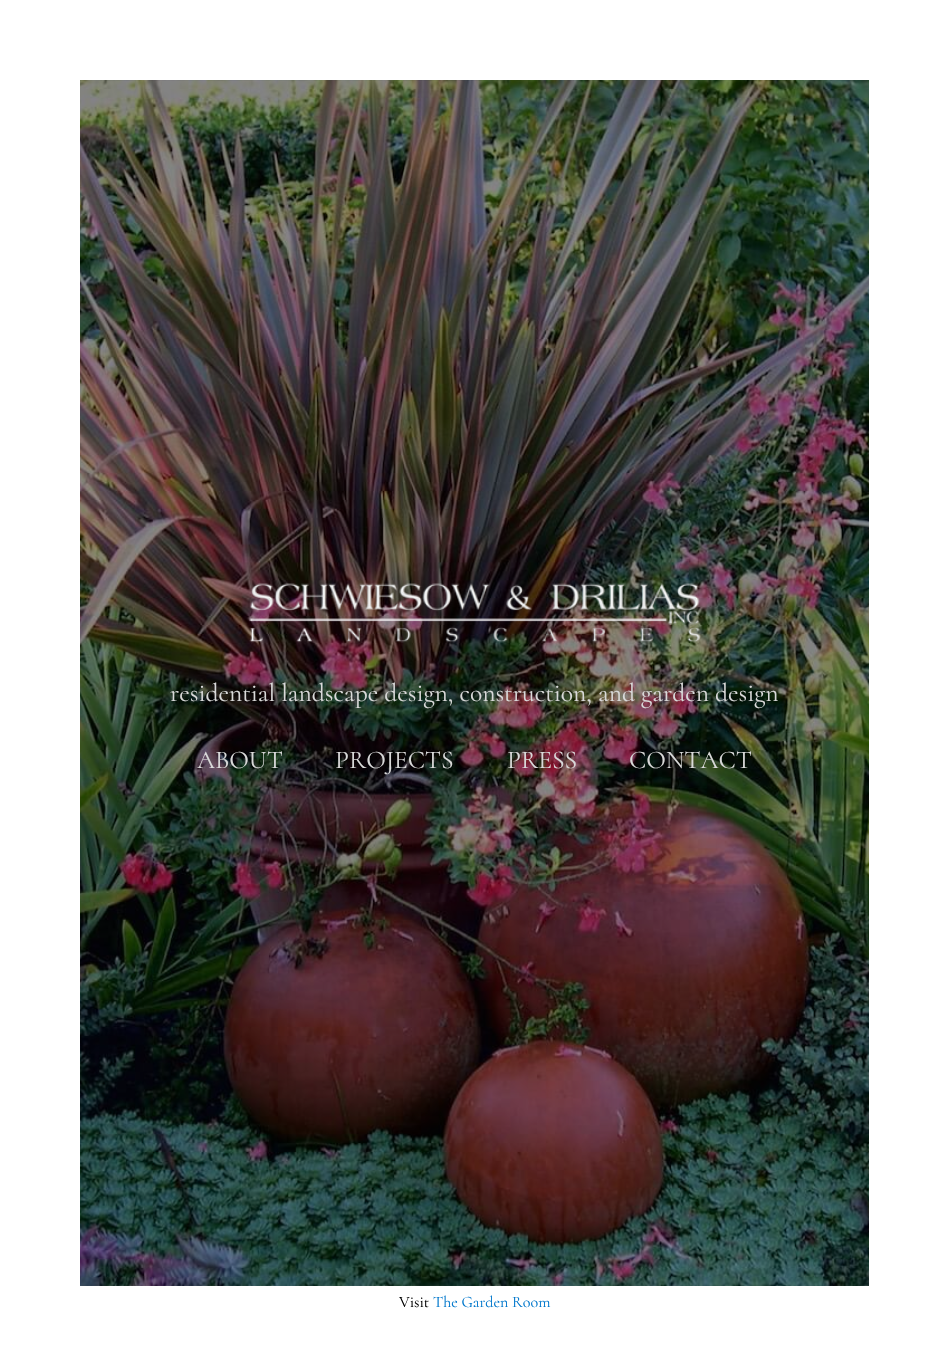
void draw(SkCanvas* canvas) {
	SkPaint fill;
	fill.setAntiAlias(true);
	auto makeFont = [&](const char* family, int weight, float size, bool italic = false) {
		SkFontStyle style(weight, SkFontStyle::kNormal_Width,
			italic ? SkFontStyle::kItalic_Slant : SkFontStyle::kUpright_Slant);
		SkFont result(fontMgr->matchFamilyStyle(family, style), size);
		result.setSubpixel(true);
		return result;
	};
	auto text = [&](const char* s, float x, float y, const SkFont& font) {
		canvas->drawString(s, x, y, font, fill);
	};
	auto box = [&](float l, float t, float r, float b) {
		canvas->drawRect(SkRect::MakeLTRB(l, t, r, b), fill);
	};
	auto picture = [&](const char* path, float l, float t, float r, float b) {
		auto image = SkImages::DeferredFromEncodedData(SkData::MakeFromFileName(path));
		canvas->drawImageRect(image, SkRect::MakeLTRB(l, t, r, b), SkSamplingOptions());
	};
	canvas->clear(0xFFFFFFFF);
	picture("image0.png", 80, 80, 869, 1286);
	fill.setColor(0x66000000);
	box(80, 80, 869, 1286);
	picture("image1.png", 249, 583, 701, 643);
	auto font1 = makeFont("Cormorant", 300, 25.6f);
	fill.setColor(0xFFD9D9D9);
	text("residential landscape design, construction, and garden design", 170, 701, font1);
	text("ABOUT", 197, 768, font1);
	text("PROJECTS", 335, 768, font1);
	text("PRESS", 507, 768, font1);
	text("CONTACT", 629, 768, font1);
	auto font2 = makeFont("Cormorant", 300, 16);
	fill.setColor(0xFF000000);
	text("Visit", 399, 1307, font2);
	fill.setColor(0xFF0077CC);
	text("The Garden Room", 433, 1307, font2);
}
